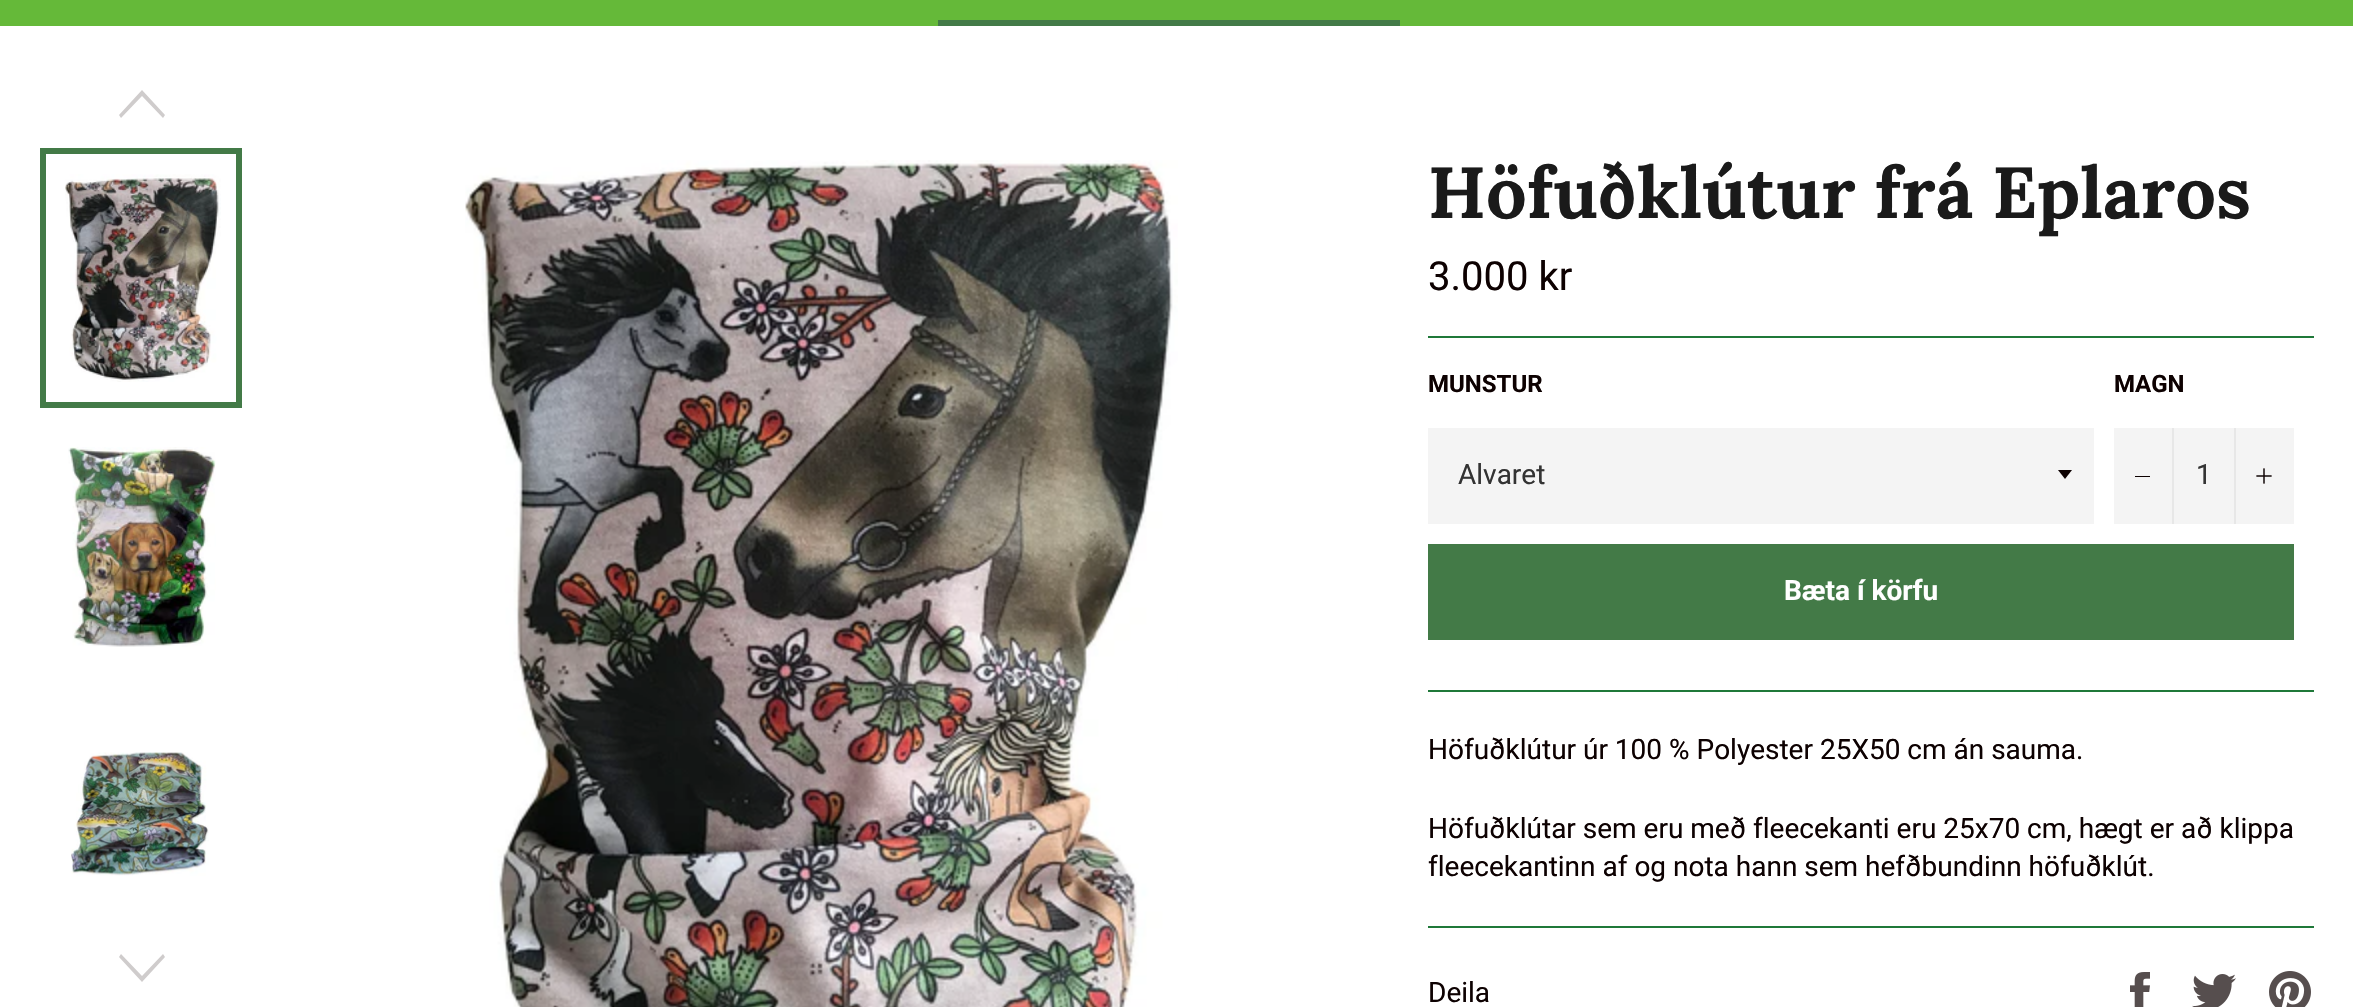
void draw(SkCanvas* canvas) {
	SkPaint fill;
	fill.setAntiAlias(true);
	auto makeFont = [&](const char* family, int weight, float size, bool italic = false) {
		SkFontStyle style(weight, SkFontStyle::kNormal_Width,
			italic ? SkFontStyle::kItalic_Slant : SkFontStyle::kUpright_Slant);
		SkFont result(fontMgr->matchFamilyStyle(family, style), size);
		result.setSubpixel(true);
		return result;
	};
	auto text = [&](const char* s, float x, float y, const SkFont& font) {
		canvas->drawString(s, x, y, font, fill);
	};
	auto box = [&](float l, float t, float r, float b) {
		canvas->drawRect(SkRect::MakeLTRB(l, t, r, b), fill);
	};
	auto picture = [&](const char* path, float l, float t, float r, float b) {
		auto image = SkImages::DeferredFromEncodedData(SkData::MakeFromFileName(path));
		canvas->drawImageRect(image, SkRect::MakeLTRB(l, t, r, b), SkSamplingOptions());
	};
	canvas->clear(0xFFFFFFFF);
	fill.setColor(0xFF65B939);
	box(0, 0, 2353, 26);
	fill.setColor(0xFF437A47);
	box(938, 20, 1400, 26);
	fill.setColor(0xFFCFCCCC);
	canvas->drawPath(SkPathBuilder().moveTo(163, 118).lineTo(165, 115).lineTo(142, 90).lineTo(119, 115).lineTo(121, 118).lineTo(142, 96).close().detach(), fill);
	picture("image0.png", 65, 174, 221, 382);
	fill.setStyle(SkPaint::kStroke_Style);
	fill.setStrokeWidth(6);
	fill.setColor(0xFF437A47);
	canvas->drawRect(SkRect::MakeLTRB(43, 151, 239, 405), fill);
	picture("image1.png", 68, 447, 216, 647);
	picture("image2.png", 71, 752, 209, 876);
	fill.setStyle(SkPaint::kFill_Style);
	fill.setColor(0xFFCFCCCC);
	canvas->drawPath(SkPathBuilder().moveTo(163, 954).lineTo(165, 957).lineTo(142, 982).lineTo(119, 957).lineTo(121, 954).lineTo(142, 976).close().detach(), fill);
	picture("image3.png", 465, 160, 1178, 1007);
	fill.setColor(0xFF1F7839);
	box(1428, 336, 2314, 338);
	fill.setColor(0xFFF4F4F4);
	box(1428, 428, 2094, 524);
	fill.setColor(0xFF0D0101);
	canvas->drawPath(SkPathBuilder().moveTo(2058, 470).lineTo(2065, 479).lineTo(2072, 470).close().detach(), fill);
	fill.setColor(0xFFF4F4F4);
	box(2114, 428, 2294, 524);
	fill.setColor(0xFFE7E7E7);
	box(2172, 428, 2174, 524);
	fill.setColor(0xFF0D0101);
	box(2135, 476, 2150, 477);
	fill.setColor(0xFFE7E7E7);
	box(2234, 428, 2236, 524);
	picture("image4.png", 2256, 468, 2272, 484);
	fill.setColor(0xFF437A47);
	box(1428, 544, 2294, 640);
	fill.setColor(0xFF1F7839);
	box(1428, 690, 2314, 692);
	box(1428, 926, 2314, 928);
	picture("image5.png", 2130, 972, 2150, 1007);
	picture("image6.png", 2192, 974, 2236, 1007);
	picture("image7.png", 2269, 971, 2311, 1007);
	auto font1 = makeFont("Lora", 700, 72);
	fill.setColor(0xFF1A1A1A);
	text("Höfuðklútur frá Eplaros", 1428, 218, font1);
	auto font2 = makeFont("Roboto", 400, 40);
	fill.setColor(0xFF0D0101);
	text("3.000 kr", 1428, 290, font2);
	auto font3 = makeFont("Roboto", 700, 24);
	text("MUNSTUR", 1428, 392, font3);
	auto font4 = makeFont("Roboto", 400, 28);
	fill.setColor(0xFF333333);
	text("Alvaret", 1458, 484, font4);
	fill.setColor(0xFF0D0101);
	text("MAGN", 2114, 392, font3);
	fill.setColor(0xFF333333);
	text("1", 2196, 484, font4);
	auto font5 = makeFont("Roboto", 700, 28);
	fill.setColor(0xFFFFFFFF);
	text("Bæta í körfu", 1784, 600, font5);
	fill.setColor(0xFF0D0101);
	text("Höfuðklútur úr 100 % Polyester 25X50 cm án sauma.", 1428, 759, font4);
	text("Höfuðklútar sem eru með fleecekanti eru 25x70 cm, hægt er að klippa", 1428, 838, font4);
	text("fleecekantinn af og nota hann sem hefðbundinn höfuðklút.", 1428, 876, font4);
	text("Deila", 1428, 1002, font4);
}
